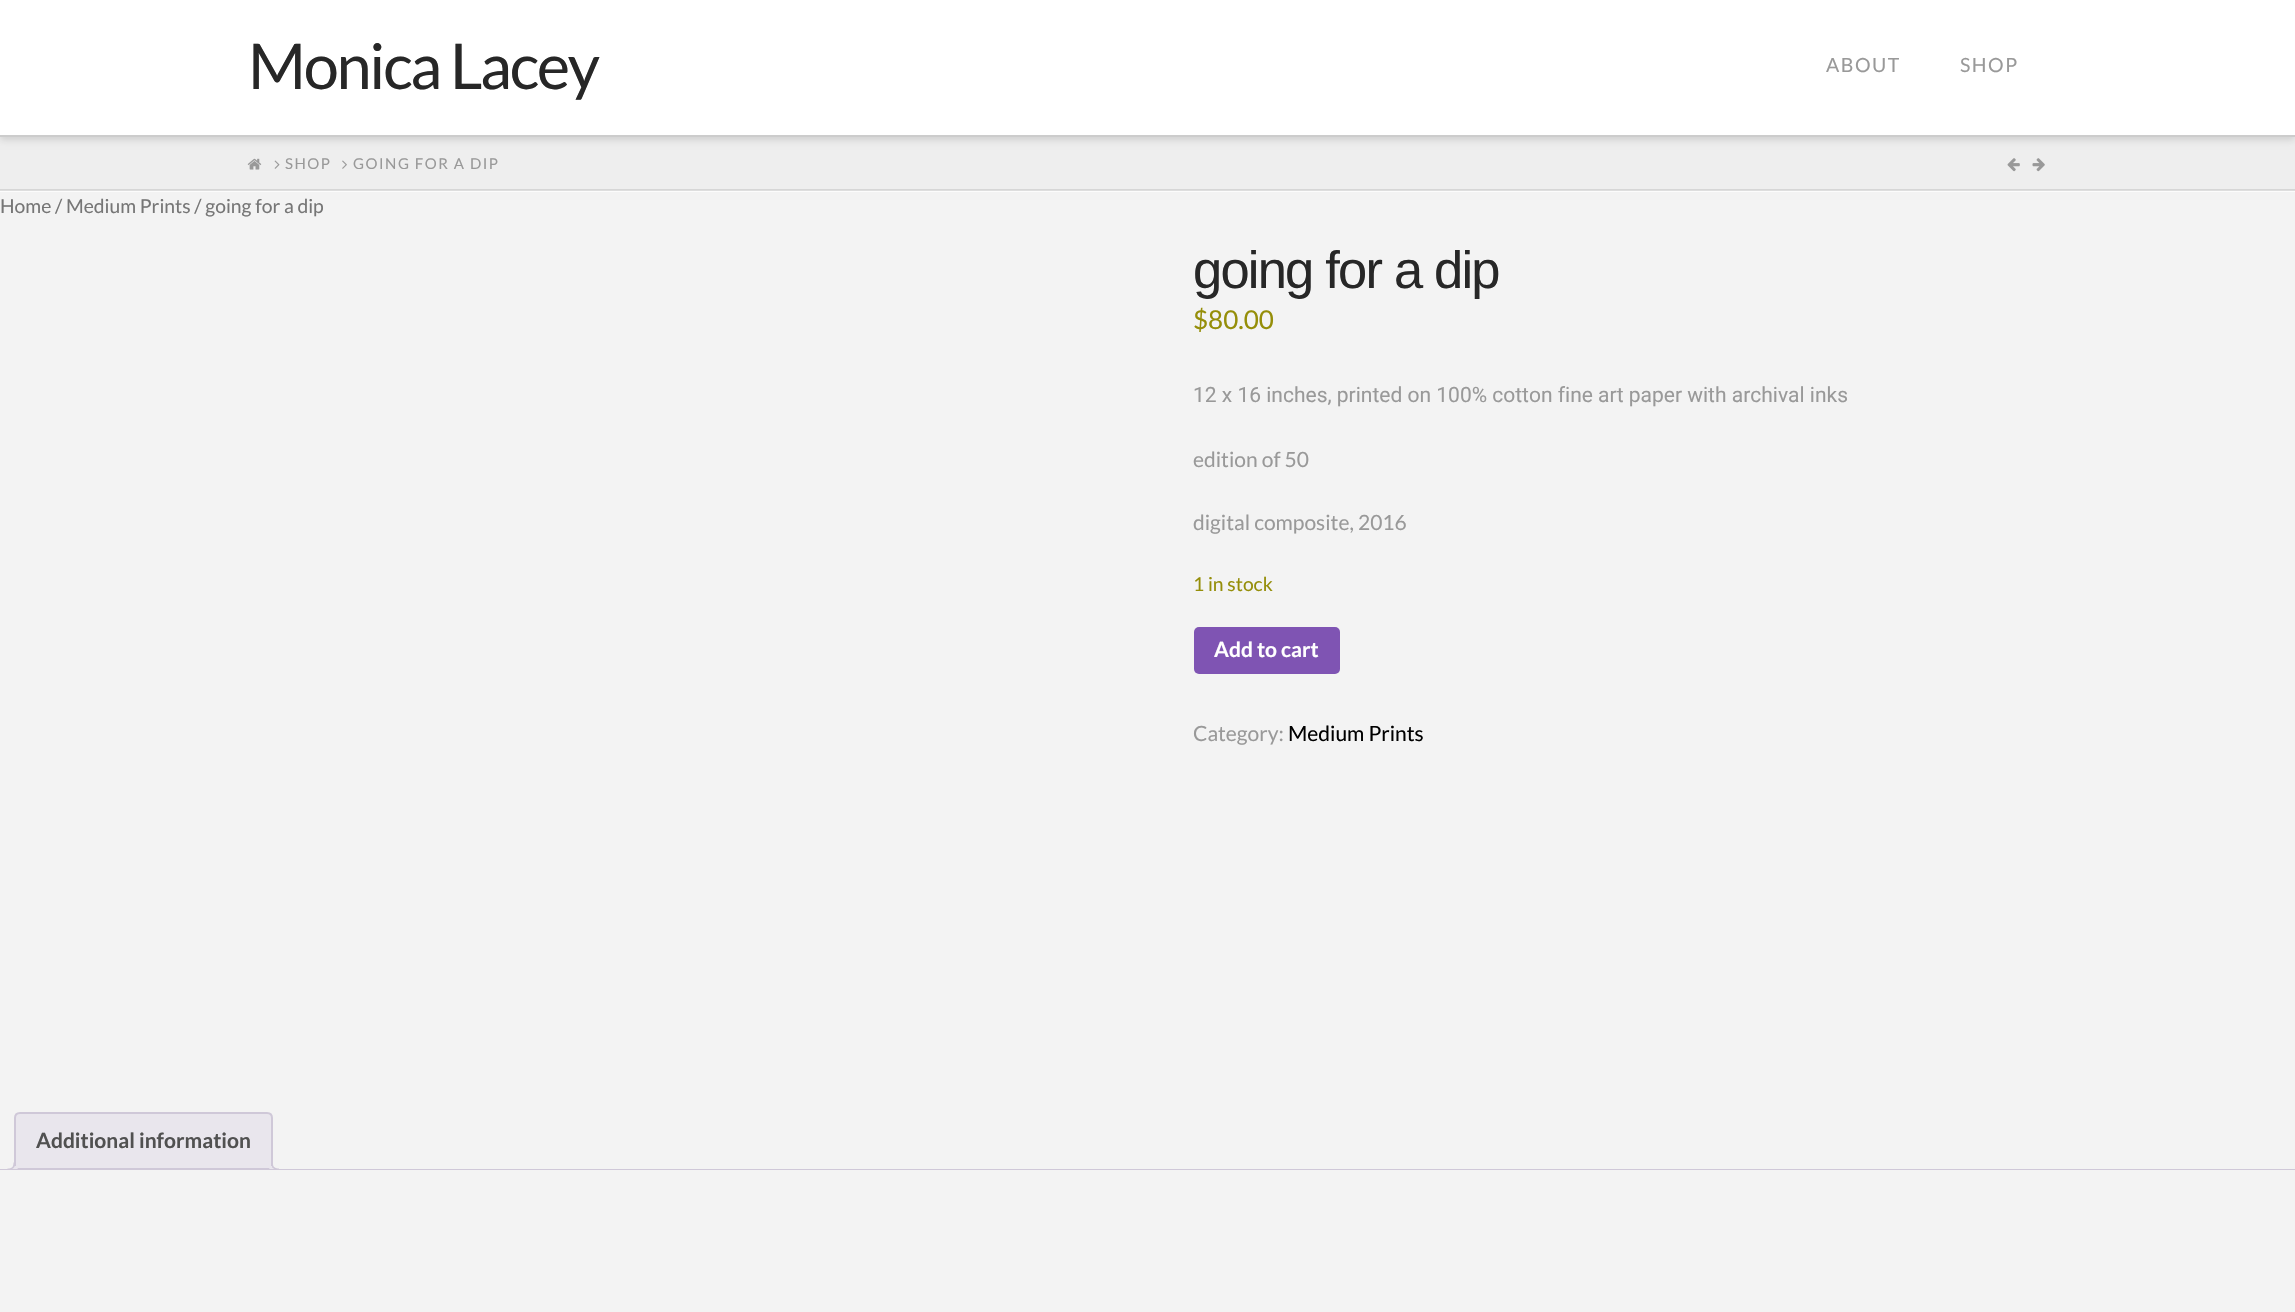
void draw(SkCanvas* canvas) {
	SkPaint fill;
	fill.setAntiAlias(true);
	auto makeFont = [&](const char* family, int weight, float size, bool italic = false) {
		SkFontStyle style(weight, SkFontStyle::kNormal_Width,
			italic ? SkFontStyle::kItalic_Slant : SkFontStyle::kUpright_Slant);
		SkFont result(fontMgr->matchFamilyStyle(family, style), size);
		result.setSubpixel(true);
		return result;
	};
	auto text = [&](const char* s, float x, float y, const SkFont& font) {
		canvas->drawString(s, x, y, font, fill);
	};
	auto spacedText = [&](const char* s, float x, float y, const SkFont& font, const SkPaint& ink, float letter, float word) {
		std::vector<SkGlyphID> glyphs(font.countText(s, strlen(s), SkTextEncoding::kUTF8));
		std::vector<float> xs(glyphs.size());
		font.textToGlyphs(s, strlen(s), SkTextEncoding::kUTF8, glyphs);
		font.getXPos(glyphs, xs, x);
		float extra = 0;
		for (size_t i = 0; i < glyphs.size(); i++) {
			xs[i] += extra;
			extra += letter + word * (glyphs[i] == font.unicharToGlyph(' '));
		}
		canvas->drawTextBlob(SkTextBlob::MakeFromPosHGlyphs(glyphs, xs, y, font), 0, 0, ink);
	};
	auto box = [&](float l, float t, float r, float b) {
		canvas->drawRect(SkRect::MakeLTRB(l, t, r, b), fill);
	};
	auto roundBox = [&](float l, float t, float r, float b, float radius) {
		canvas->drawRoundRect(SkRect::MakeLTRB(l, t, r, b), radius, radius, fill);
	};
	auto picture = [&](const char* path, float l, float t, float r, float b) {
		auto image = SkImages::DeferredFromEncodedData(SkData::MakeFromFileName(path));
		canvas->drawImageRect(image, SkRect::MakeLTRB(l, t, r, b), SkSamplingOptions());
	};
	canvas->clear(0xFFF3F3F3);
	fill.setColor(0xFFEEEEEE);
	box(0, 137, 2295, 189);
	fill.setColor(0xFFD6D6D6);
	box(0, 189, 2295, 190);
	fill.setColor(0x21000000);
	fill.setMaskFilter(SkMaskFilter::MakeBlur(kNormal_SkBlurStyle, 3.5f));
	canvas->drawRect(SkRect::MakeLTRB(0, 3, 2295, 140), fill);
	fill.setMaskFilter(nullptr);
	fill.setColor(0xFFFFFFFF);
	box(0, 0, 2295, 135);
	fill.setColor(0xFFCCCCCC);
	box(0, 135, 2295, 137);
	fill.setColor(0xFFFCFCFC);
	box(0, 191, 2295, 192);
	fill.setColor(0xFFDEDEDE);
	box(0, 190, 2295, 191);
	picture("image0.png", 247, 158, 262, 170);
	picture("image1.png", 274, 160, 280, 169);
	picture("image2.png", 342, 160, 347, 169);
	picture("image3.png", 2007, 158, 2020, 172);
	picture("image4.png", 2032, 158, 2045, 172);
	fill.setColor(0xFF7F54B3);
	roundBox(1194, 627, 1340, 674, 5);
	fill.setColor(0xFFE9E6ED);
	canvas->drawPath(SkPathBuilder().moveTo(20, 1113).lineTo(267, 1113).cubicTo(270, 1113, 272, 1115, 272, 1118).lineTo(272, 1169).lineTo(15, 1169).lineTo(15, 1118).cubicTo(15, 1115, 17, 1113, 20, 1113).close().detach(), fill);
	fill.setStyle(SkPaint::kStroke_Style);
	fill.setStrokeWidth(2);
	fill.setColor(0xFFCFC8D8);
	canvas->drawPath(SkPathBuilder().moveTo(20, 1113).lineTo(267, 1113).cubicTo(270, 1113, 272, 1115, 272, 1118).lineTo(272, 1169).lineTo(15, 1169).lineTo(15, 1118).cubicTo(15, 1115, 17, 1113, 20, 1113).close().detach(), fill);
	canvas->save();
	canvas->clipRect(SkRect::MakeLTRB(0, 1112, 2295, 1170));
	fill.setStyle(SkPaint::kFill_Style);
	fill.setColor(0xFFE9E6ED);
	canvas->drawPath(SkPathBuilder().moveTo(11, 1169.5f).lineTo(11, 1173).cubicTo(15.5f, 1173, 18, 1170.5f, 18, 1166).lineTo(14.5f, 1166).cubicTo(14, 1167.5f, 12.5f, 1169, 11, 1169.5f).close().detach(), fill);
	canvas->restore();
	fill.setColor(0xFFCFC8D8);
	canvas->drawPath(SkPathBuilder(SkPathFillType::kEvenOdd).moveTo(7.5f, 1162.5f).lineTo(15, 1162.5f).cubicTo(15, 1168, 13, 1170, 7.5f, 1170).close().moveTo(7.5f, 1162.5f).lineTo(13.5f, 1162.5f).cubicTo(13.5f, 1167, 12, 1168.5f, 7.5f, 1168.5f).close().detach(), fill);
	canvas->save();
	canvas->clipRect(SkRect::MakeLTRB(0, 1112, 2295, 1170));
	fill.setColor(0xFFE9E6ED);
	canvas->drawPath(SkPathBuilder().moveTo(269, 1166).cubicTo(269, 1170.5f, 271.5f, 1173, 276, 1173).lineTo(276, 1170).cubicTo(274, 1169.5f, 272.5f, 1168, 272, 1166).close().detach(), fill);
	canvas->restore();
	fill.setColor(0xFFCFC8D8);
	canvas->drawPath(SkPathBuilder(SkPathFillType::kEvenOdd).moveTo(271.5f, 1162.5f).lineTo(279, 1162.5f).lineTo(279, 1170).cubicTo(275, 1170, 271.5f, 1168.5f, 271.5f, 1164).close().moveTo(273, 1162.5f).lineTo(279, 1162.5f).lineTo(279, 1168.5f).cubicTo(276, 1168.5f, 273, 1167.5f, 273, 1164).close().detach(), fill);
	box(0, 1169, 2295, 1170);
	auto font1 = makeFont("Lato", 400, 63);
	fill.setColor(0xFF272727);
	spacedText("Monica Lacey", 248, 89, font1, fill, -2.25f, 0);
	auto font2 = makeFont("Lato", 400, 19.5f);
	fill.setColor(0xFF999999);
	spacedText("ABOUT", 1826, 72, font2, fill, 1.5f, 0);
	spacedText("SHOP", 1960, 72, font2, fill, 1.5f, 0);
	auto font3 = makeFont("Lato", 400, 15);
	spacedText("SHOP", 285, 169, font3, fill, 1.5f, 0);
	spacedText("GOING FOR A DIP", 353, 169, font3, fill, 1.5f, 0);
	auto font4 = makeFont("Lato", 400, 19.3f);
	fill.setColor(0xFF767676);
	text("Home / Medium Prints / going for a dip", 0, 213, font4);
	auto font5 = makeFont("Liberation Sans", 400, 52.5f);
	fill.setColor(0xFF272727);
	spacedText("going for a dip", 1193, 288, font5, fill, -1.8f, 0);
	auto font6 = makeFont("Lato", 400, 26);
	fill.setColor(0xFF958E09);
	text("$80.00", 1193, 329, font6);
	auto font7 = makeFont("Roboto", 400, 21);
	fill.setColor(0xFF999999);
	text("12 x 16 inches, printed on 100% cotton fine art paper with archival inks", 1193, 402, font7);
	auto font8 = makeFont("Lato", 400, 21);
	text("edition of 50", 1193, 467, font8);
	text("digital composite, 2016", 1193, 530, font8);
	fill.setColor(0xFF958E09);
	text("1 in stock", 1193, 591, font4);
	auto font9 = makeFont("Lato", 700, 21);
	fill.setColor(0xFFFFFFFF);
	text("Add to cart", 1214, 657, font9);
	fill.setColor(0xFF999999);
	text("Category:", 1193, 741, font8);
	fill.setColor(0xFF000000);
	text("Medium Prints", 1288, 741, font8);
	fill.setColor(0xFF515151);
	text("Additional information", 36, 1148, font9);
}
